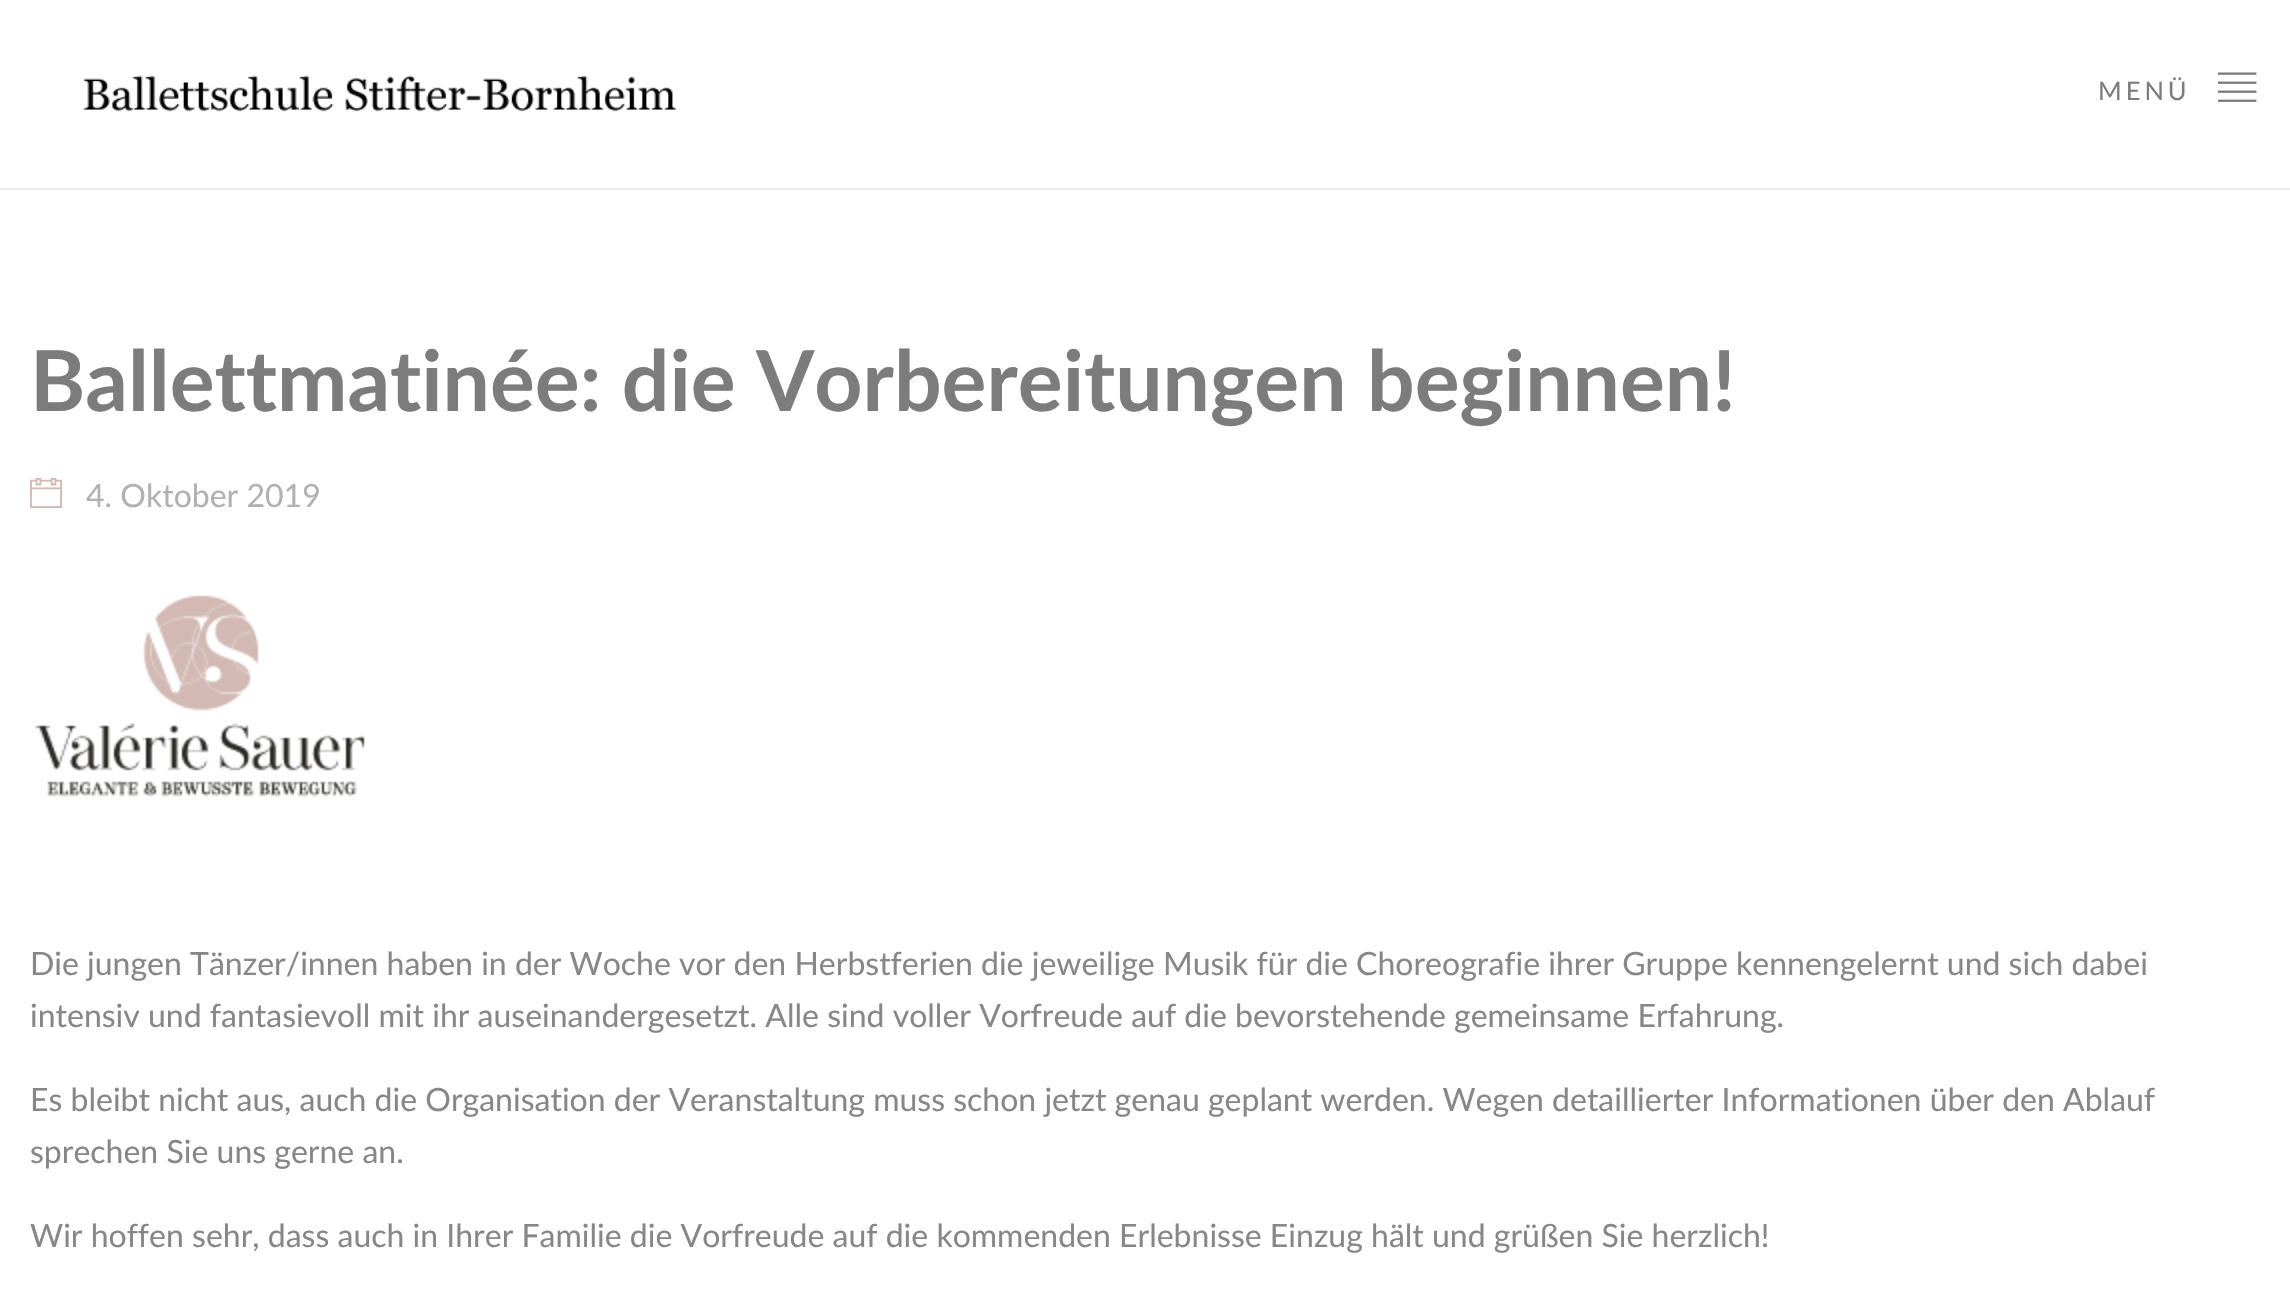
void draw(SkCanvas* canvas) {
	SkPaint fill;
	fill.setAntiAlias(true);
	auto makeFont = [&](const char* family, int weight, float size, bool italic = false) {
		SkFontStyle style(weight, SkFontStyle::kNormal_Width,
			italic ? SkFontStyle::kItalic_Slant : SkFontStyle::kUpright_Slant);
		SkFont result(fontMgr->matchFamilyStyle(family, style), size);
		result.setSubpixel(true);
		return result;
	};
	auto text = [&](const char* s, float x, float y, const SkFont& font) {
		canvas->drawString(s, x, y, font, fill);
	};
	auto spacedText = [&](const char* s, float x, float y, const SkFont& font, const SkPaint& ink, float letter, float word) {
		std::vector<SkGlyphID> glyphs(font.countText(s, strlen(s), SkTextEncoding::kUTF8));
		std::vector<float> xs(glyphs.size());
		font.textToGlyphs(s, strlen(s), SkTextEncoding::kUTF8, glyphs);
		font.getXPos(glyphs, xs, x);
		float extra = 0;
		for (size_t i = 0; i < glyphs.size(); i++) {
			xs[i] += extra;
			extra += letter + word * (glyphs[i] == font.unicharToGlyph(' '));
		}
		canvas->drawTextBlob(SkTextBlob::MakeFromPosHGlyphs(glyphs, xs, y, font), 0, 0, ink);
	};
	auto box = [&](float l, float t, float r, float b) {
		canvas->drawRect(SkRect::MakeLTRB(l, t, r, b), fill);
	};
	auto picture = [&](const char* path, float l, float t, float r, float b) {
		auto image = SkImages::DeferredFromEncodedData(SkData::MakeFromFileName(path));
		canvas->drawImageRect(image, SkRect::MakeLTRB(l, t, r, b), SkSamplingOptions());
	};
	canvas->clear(0xFFFFFFFF);
	picture("image0.png", 83, 75, 677, 112);
	picture("image1.png", 2218, 72, 2257, 102);
	fill.setColor(0xFFEBEBEB);
	box(0, 188, 2290, 190);
	picture("image2.png", 30, 477, 62, 508);
	picture("image3.png", 35, 595, 365, 797);
	auto font1 = makeFont("Lato", 400, 25.5f);
	fill.setColor(0xFF7C7C7C);
	spacedText("MENÜ", 2098, 100, font1, fill, 4, 0);
	auto font2 = makeFont("Lato", 700, 84);
	text("Ballettmatinée: die Vorbereitungen beginnen!", 30, 411, font2);
	auto font3 = makeFont("Lato", 400, 32);
	fill.setColor(0xFFB1B1B1);
	text("4. Oktober 2019", 86, 507, font3);
	fill.setColor(0xFF878787);
	text("Die jungen Tänzer/innen haben in der Woche vor den Herbstferien die jeweilige Musik für die Choreografie ihrer Gruppe kennengelernt und sich dabei", 30, 975, font3);
	text("intensiv und fantasievoll mit ihr auseinandergesetzt. Alle sind voller Vorfreude auf die bevorstehende gemeinsame Erfahrung.", 30, 1027, font3);
	text("Es bleibt nicht aus, auch die Organisation der Veranstaltung muss schon jetzt genau geplant werden. Wegen detaillierter Informationen über den Ablauf", 30, 1111, font3);
	text("sprechen Sie uns gerne an.", 30, 1163, font3);
	text("Wir hoffen sehr, dass auch in Ihrer Familie die Vorfreude auf die kommenden Erlebnisse Einzug hält und grüßen Sie herzlich!", 30, 1247, font3);
}
